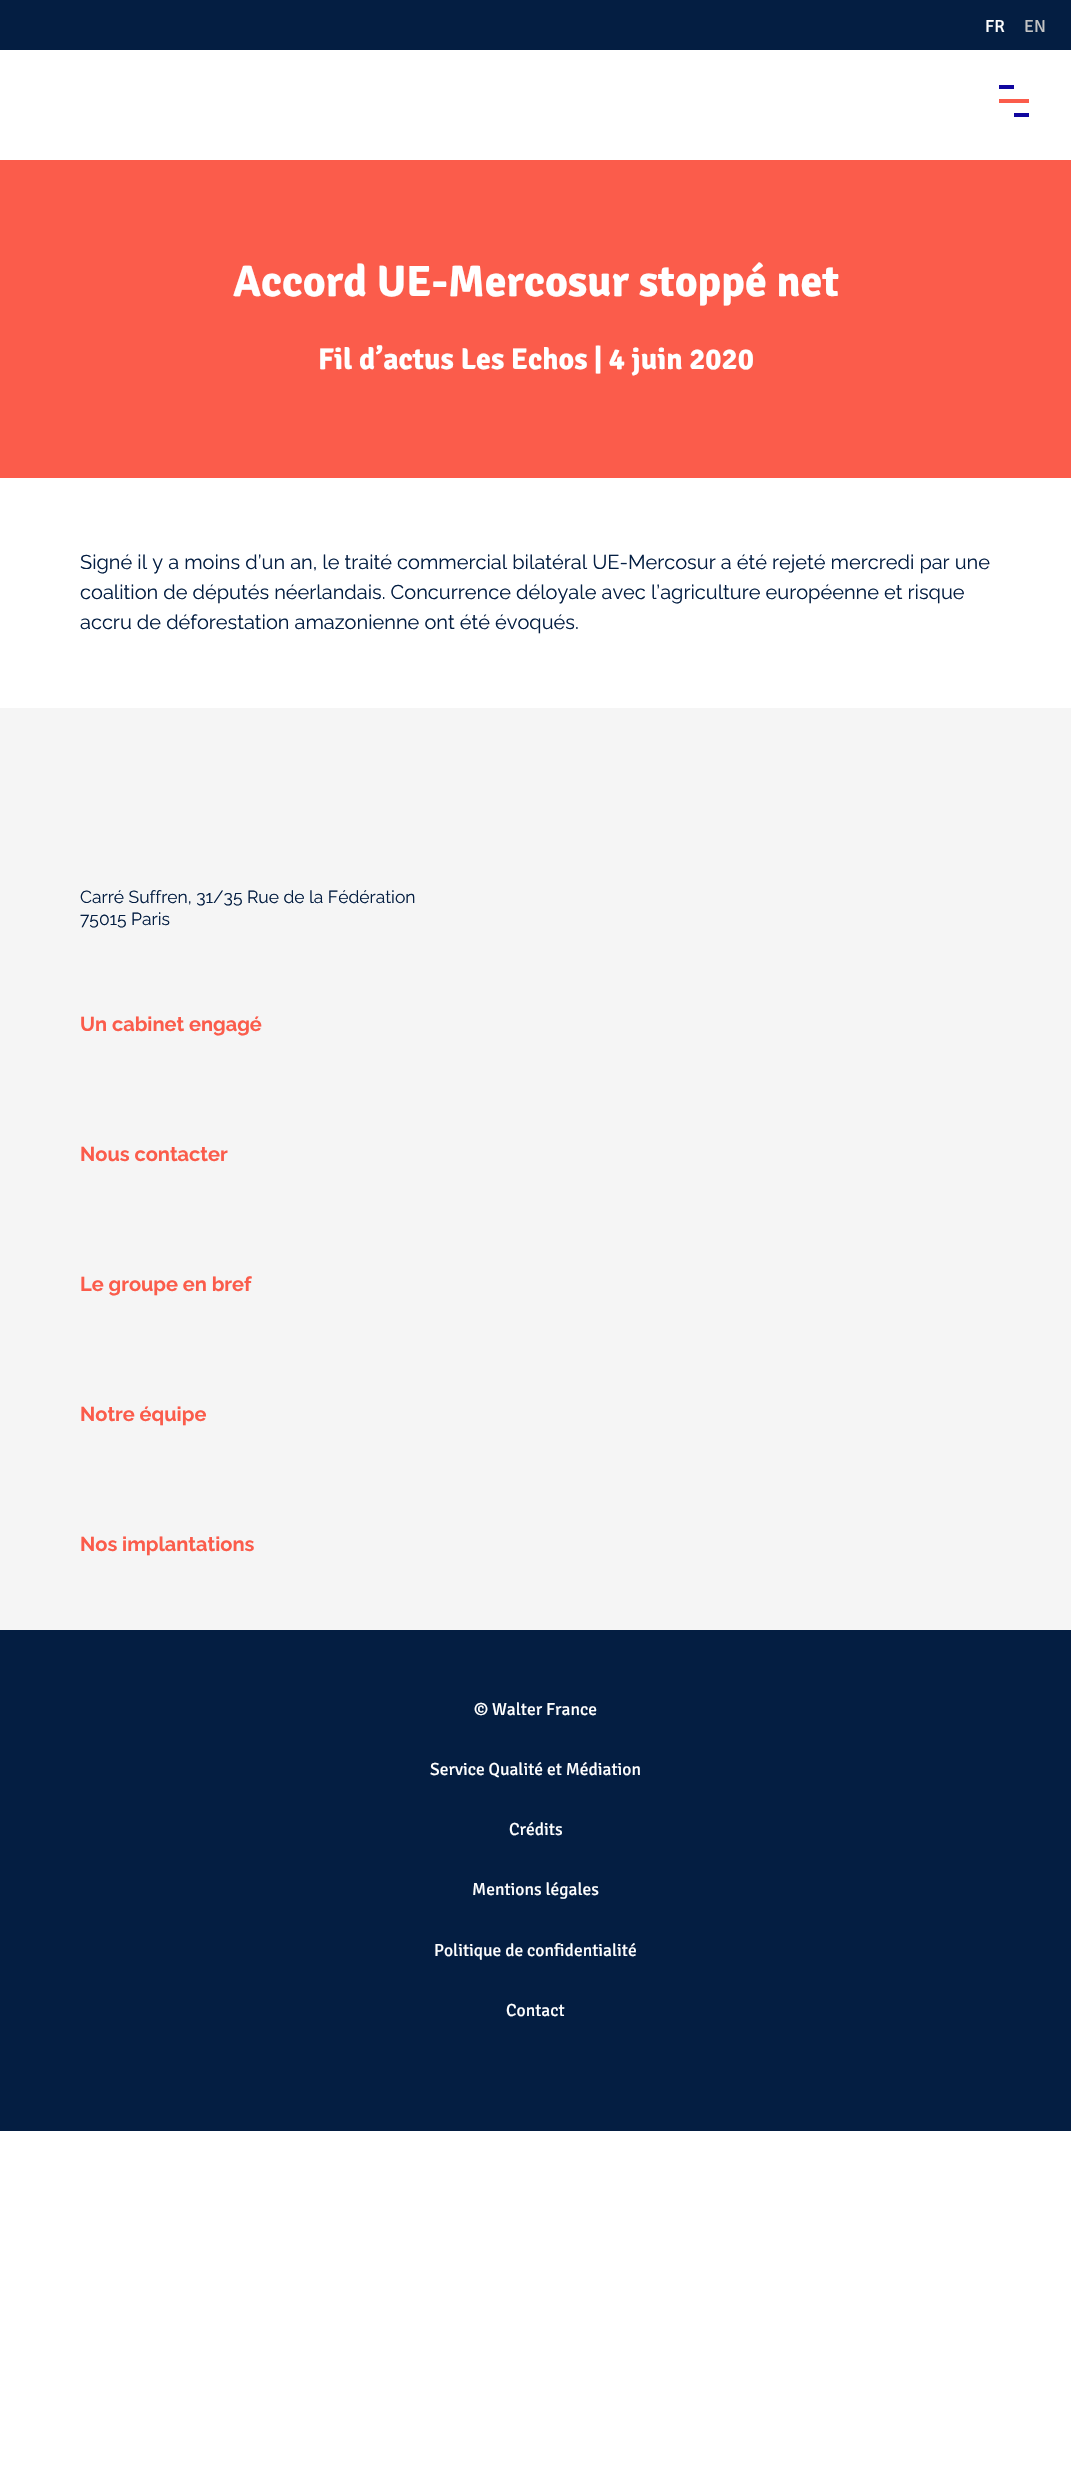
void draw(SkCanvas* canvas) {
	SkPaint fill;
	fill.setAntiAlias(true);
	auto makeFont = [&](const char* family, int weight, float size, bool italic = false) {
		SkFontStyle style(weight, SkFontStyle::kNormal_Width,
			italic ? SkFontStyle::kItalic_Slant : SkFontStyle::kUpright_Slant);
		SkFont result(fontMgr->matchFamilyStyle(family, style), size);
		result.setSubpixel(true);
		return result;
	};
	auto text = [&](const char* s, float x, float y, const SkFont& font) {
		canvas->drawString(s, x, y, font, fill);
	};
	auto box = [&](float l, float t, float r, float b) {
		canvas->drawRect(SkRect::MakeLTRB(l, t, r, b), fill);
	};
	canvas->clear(0xFFFFFFFF);
	fill.setColor(0xFF041E42);
	box(0, 0, 1071, 50);
	fill.setColor(0xFF10069F);
	box(999, 85, 1014, 89);
	fill.setColor(0xFFFB5C4B);
	box(999, 99, 1029, 103);
	fill.setColor(0xFF10069F);
	box(1014, 113, 1029, 117);
	fill.setColor(0xFFFB5C4B);
	box(0, 160, 1071, 478);
	fill.setColor(0xFFF5F5F5);
	box(0, 708, 1071, 1630);
	fill.setColor(0xFF041E42);
	box(0, 1630, 1071, 2131);
	auto font1 = makeFont("Signika", 400, 17.5f);
	fill.setColor(0xFFFFFFFF);
	text("FR", 985, 32, font1);
	fill.setColor(0xFFC4C4C4);
	text("EN", 1024, 32, font1);
	auto font2 = makeFont("Signika", 700, 44);
	fill.setColor(0xFFFFFFFF);
	text("Accord UE-Mercosur stoppé net", 233, 296, font2);
	auto font3 = makeFont("Signika", 700, 30);
	text("Fil d’actus Les Echos | 4 juin 2020", 318, 369, font3);
	auto font4 = makeFont("Raleway", 400, 20);
	fill.setColor(0xFF041E42);
	text("Signé il y a moins d’un an, le traité commercial bilatéral UE-Mercosur a été rejeté mercredi par une", 80, 569, font4);
	text("coalition de députés néerlandais. Concurrence déloyale avec l’agriculture européenne et risque", 80, 599, font4);
	text("accru de déforestation amazonienne ont été évoqués.", 80, 629, font4);
	auto font5 = makeFont("Raleway", 400, 17.5f);
	text("Carré Suffren, 31/35 Rue de la Fédération", 80, 903, font5);
	text("75015 Paris", 80, 925, font5);
	auto font6 = makeFont("Raleway", 700, 20);
	fill.setColor(0xFFFB5C4B);
	text("Un cabinet engagé", 80, 1031, font6);
	text("Nous contacter", 80, 1161, font6);
	text("Le groupe en bref", 80, 1291, font6);
	text("Notre équipe", 80, 1421, font6);
	text("Nos implantations", 80, 1551, font6);
	fill.setColor(0xFFFFFFFF);
	text("© Walter France", 474, 1715, font1);
	text("Service Qualité et Médiation", 430, 1775, font1);
	text("Crédits", 509, 1835, font1);
	text("Mentions légales", 472, 1895, font1);
	text("Politique de confidentialité", 434, 1956, font1);
	text("Contact", 506, 2016, font1);
}
